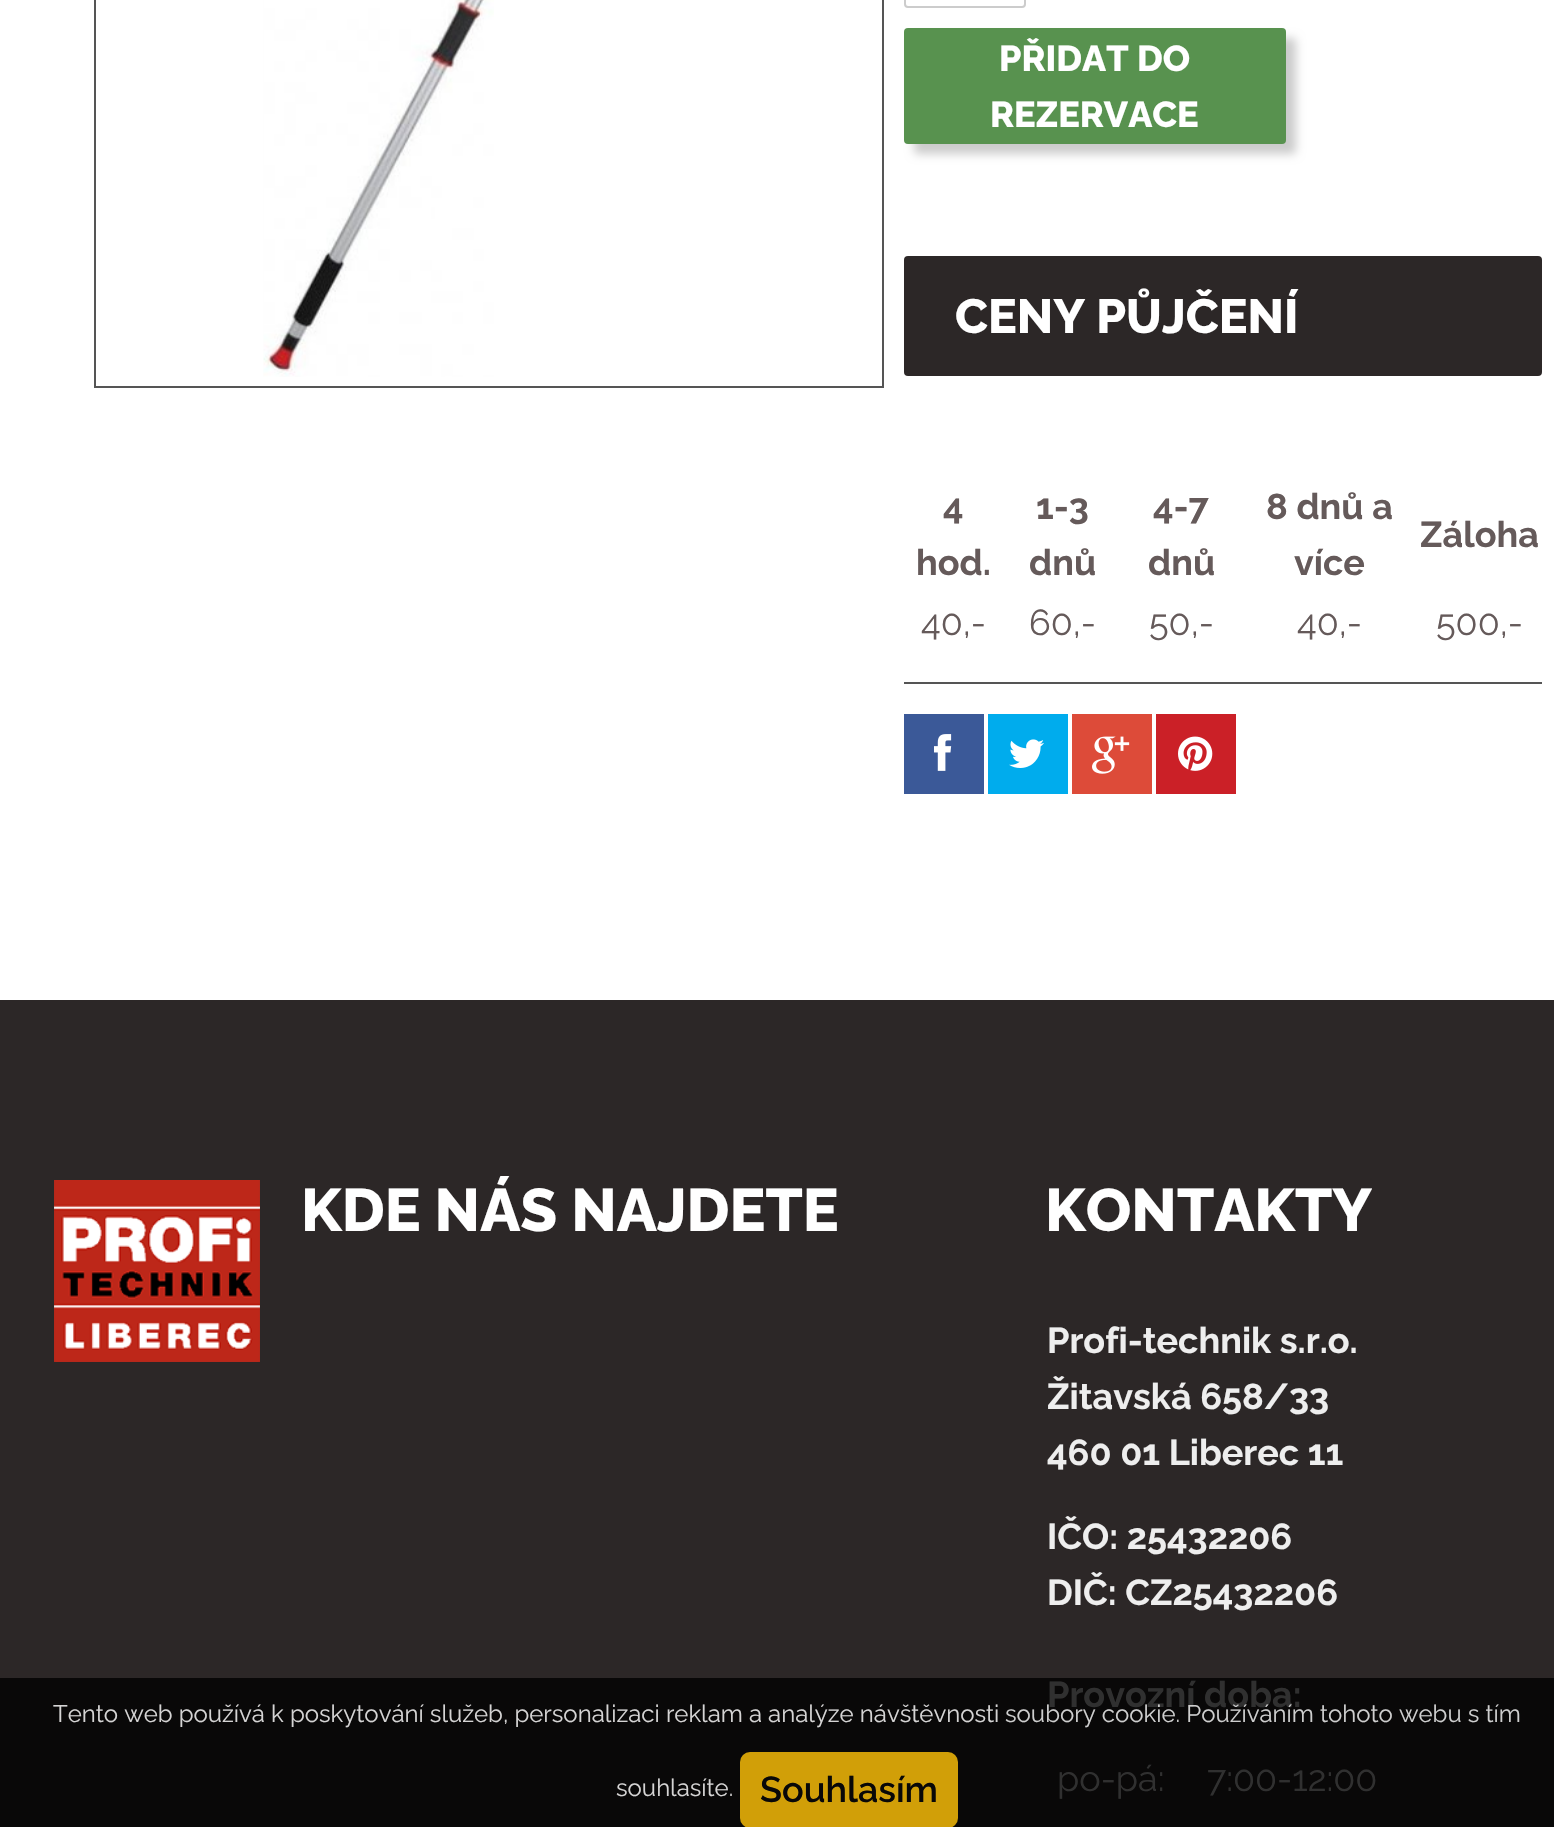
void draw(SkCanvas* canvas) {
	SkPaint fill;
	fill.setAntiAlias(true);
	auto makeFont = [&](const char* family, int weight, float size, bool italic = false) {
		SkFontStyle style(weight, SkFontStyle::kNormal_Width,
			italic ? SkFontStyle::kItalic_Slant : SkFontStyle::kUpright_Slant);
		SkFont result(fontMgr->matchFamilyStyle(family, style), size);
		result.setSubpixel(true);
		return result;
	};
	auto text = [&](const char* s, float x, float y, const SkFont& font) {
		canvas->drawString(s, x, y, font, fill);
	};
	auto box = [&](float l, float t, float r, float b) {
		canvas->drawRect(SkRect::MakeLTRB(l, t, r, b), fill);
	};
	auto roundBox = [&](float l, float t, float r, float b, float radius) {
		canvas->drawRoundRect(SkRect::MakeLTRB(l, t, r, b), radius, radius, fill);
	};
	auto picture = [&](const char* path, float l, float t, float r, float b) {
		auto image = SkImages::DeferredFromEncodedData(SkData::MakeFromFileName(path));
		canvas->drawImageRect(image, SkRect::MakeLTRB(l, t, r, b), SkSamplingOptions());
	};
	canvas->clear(0xFFFFFFFF);
	fill.setStyle(SkPaint::kStroke_Style);
	fill.setStrokeWidth(2);
	fill.setColor(0xFF555555);
	canvas->drawRect(SkRect::MakeLTRB(95, -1, 883, 387), fill);
	picture("image0.png", 263, 0, 494, 377);
	fill.setColor(0xFFCCCCCC);
	canvas->drawRoundRect(SkRect::MakeLTRB(905, -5, 1025, 7), 3, 3, fill);
	fill.setStyle(SkPaint::kFill_Style);
	fill.setColor(0x33000000);
	fill.setMaskFilter(SkMaskFilter::MakeBlur(kNormal_SkBlurStyle, 5));
	canvas->drawRoundRect(SkRect::MakeLTRB(914, 38, 1296, 154), 4, 4, fill);
	fill.setMaskFilter(nullptr);
	fill.setColor(0xFF58924F);
	roundBox(904, 28, 1286, 144, 4);
	fill.setColor(0xFF2C2727);
	roundBox(904, 256, 1542, 376, 4);
	fill.setColor(0xFF555555);
	box(904, 682, 1542, 684);
	fill.setColor(0xFF3B5998);
	box(904, 714, 984, 794);
	picture("image1.png", 934, 734, 952, 771);
	fill.setColor(0xFF00ACED);
	box(988, 714, 1068, 794);
	picture("image2.png", 1009, 739, 1044, 768);
	fill.setColor(0xFFDD4B39);
	box(1072, 714, 1152, 794);
	picture("image3.png", 1092, 736, 1130, 774);
	fill.setColor(0xFFCB2027);
	box(1156, 714, 1236, 794);
	picture("image4.png", 1178, 736, 1213, 771);
	fill.setColor(0xFF2C2727);
	box(0, 1000, 1554, 1678);
	fill.setColor(0xFF090808);
	box(0, 1678, 1554, 1827);
	picture("image5.png", 54, 1180, 260, 1362);
	fill.setColor(0xFFD19F08);
	roundBox(740, 1752, 958, 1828, 10);
	auto font1 = makeFont("Raleway", 800, 36);
	fill.setColor(0xFFFFFFFF);
	text("PŘIDAT DO", 999, 71, font1);
	text("REZERVACE", 990, 127, font1);
	auto font2 = makeFont("Raleway", 800, 48);
	text("CENY PŮJČENÍ", 955, 333, font2);
	auto font3 = makeFont("Raleway", 700, 36);
	fill.setColor(0xFF655A5A);
	text("4", 943, 519, font3);
	text("hod.", 916, 575, font3);
	text("1-3", 1036, 519, font3);
	text("dnů", 1029, 575, font3);
	text("4-7", 1153, 519, font3);
	text("dnů", 1148, 575, font3);
	text("8 dnů a", 1266, 519, font3);
	text("více", 1294, 575, font3);
	text("Záloha", 1420, 547, font3);
	auto font4 = makeFont("Raleway", 400, 36);
	text("40,-", 921, 635, font4);
	text("60,-", 1029, 635, font4);
	text("50,-", 1149, 635, font4);
	text("40,-", 1297, 635, font4);
	text("500,-", 1436, 635, font4);
	auto font5 = makeFont("Raleway", 800, 60);
	fill.setColor(0xFFFFFFFF);
	text("KDE NÁS NAJDETE", 301, 1231, font5);
	text("KONTAKTY", 1045, 1231, font5);
	fill.setColor(0xFFEEEEEE);
	text("Profi-technik s.r.o.", 1047, 1353, font3);
	text("Žitavská 658/33", 1047, 1409, font3);
	text("460 01 Liberec 11", 1047, 1465, font3);
	text("IČO: 25432206", 1047, 1549, font3);
	text("DIČ: CZ25432206", 1047, 1605, font3);
	fill.setColor(0xFF303030);
	text("Provozní doba:", 1047, 1707, font3);
	text("po-pá:", 1057, 1791, font4);
	text("7:00-12:00", 1207, 1791, font4);
	auto font6 = makeFont("Raleway", 400, 24);
	fill.setColor(0xFFD5D4D4);
	text("Tento web používá k poskytování služeb, personalizaci reklam a analýze návštěvnosti", 53, 1722, font6);
	fill.setColor(0xFFCECECE);
	text("soubory cookie. Používáním tohoto webu s tím", 1005, 1722, font6);
	fill.setColor(0xFFD5D4D4);
	text("souhlasíte.", 616, 1796, font6);
	auto font7 = makeFont("Raleway", 600, 36);
	fill.setColor(0xFF090808);
	text("Souhlasím", 760, 1802, font7);
}
